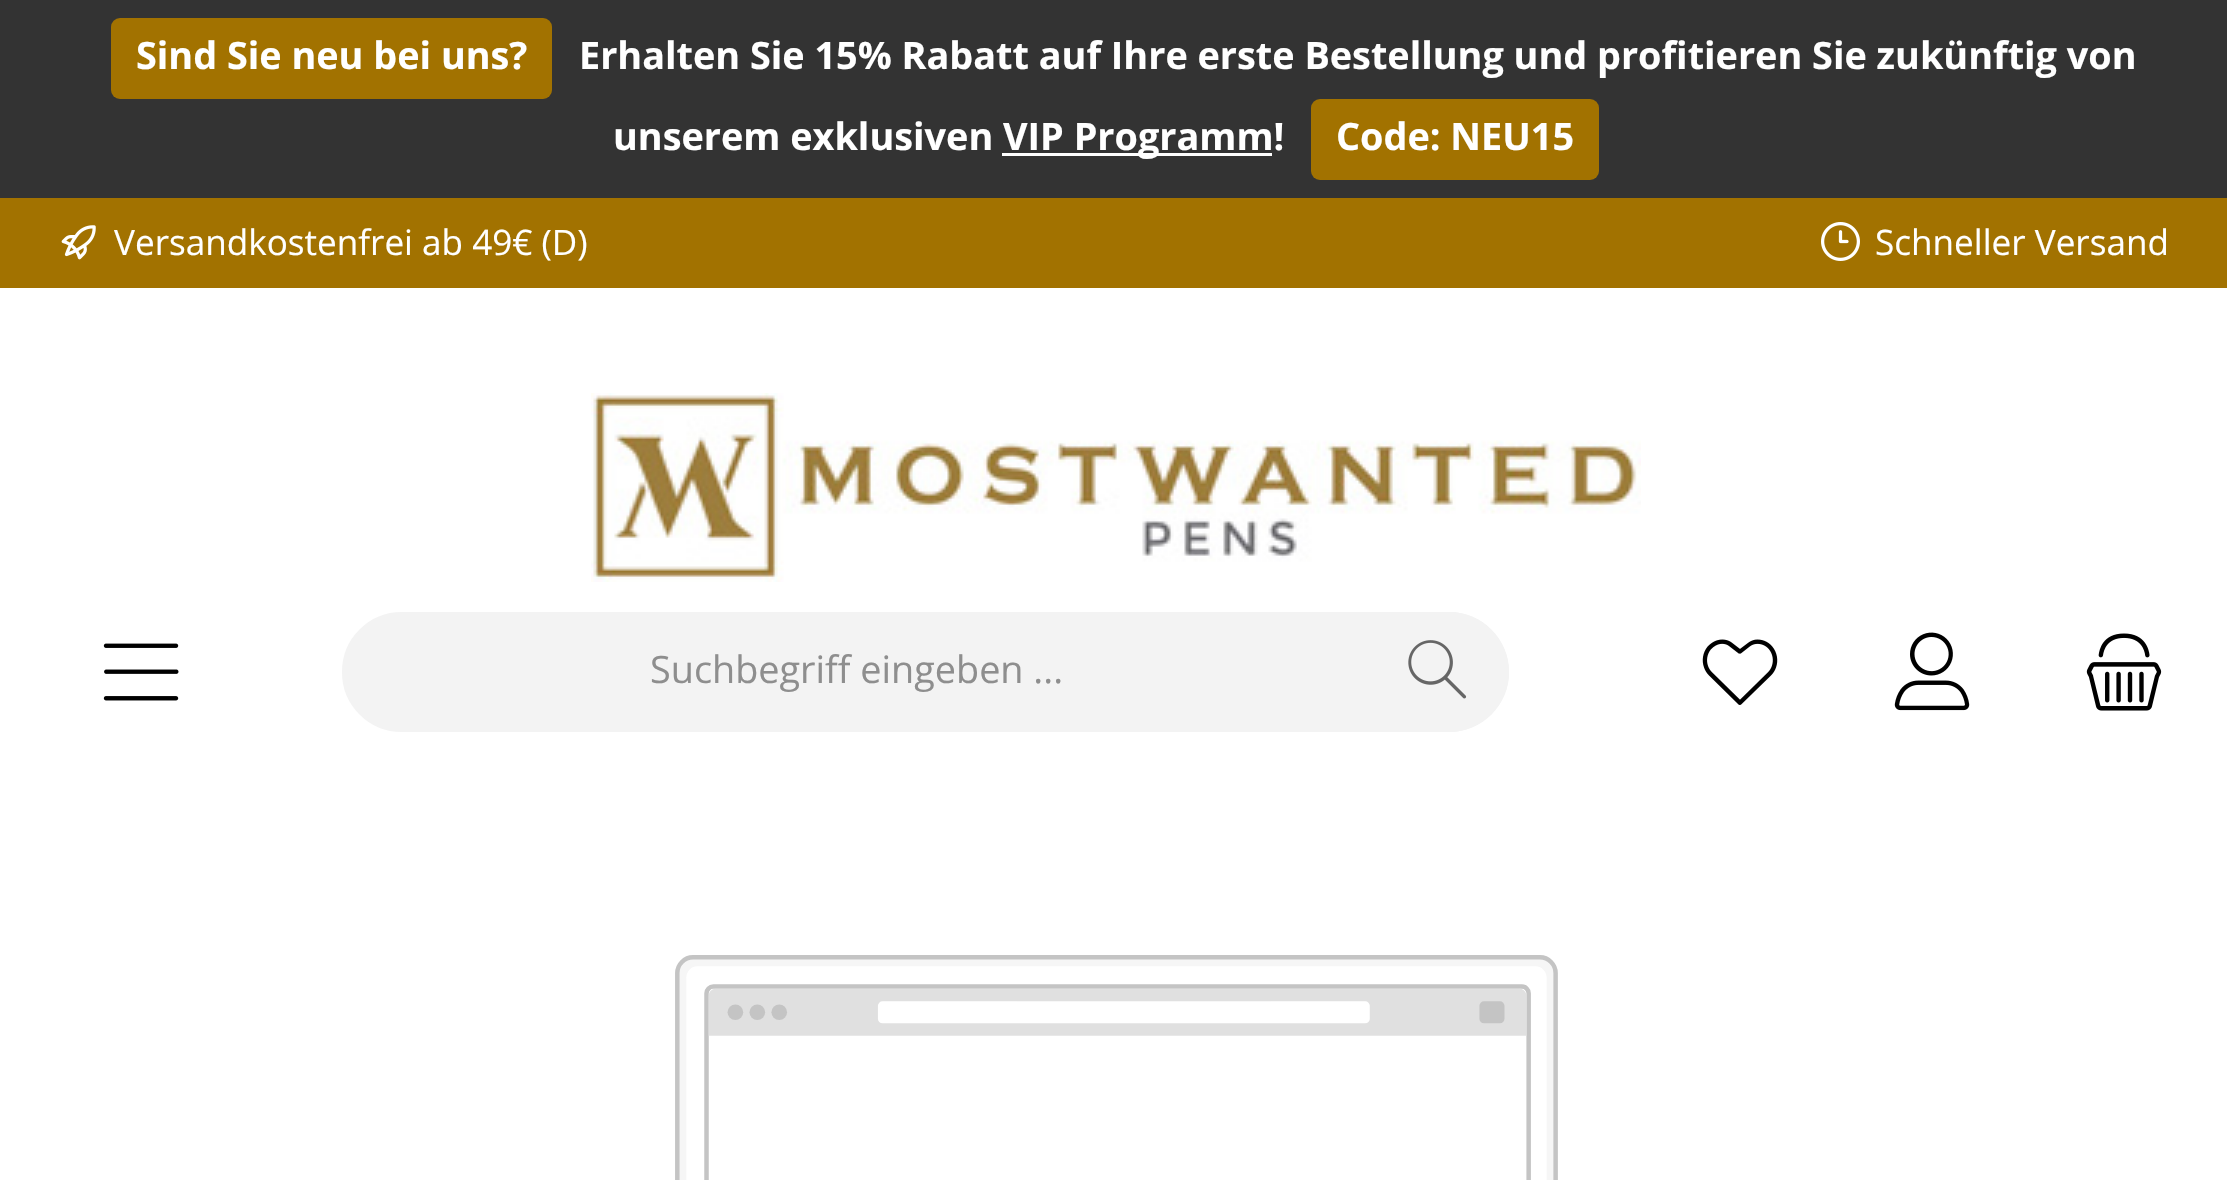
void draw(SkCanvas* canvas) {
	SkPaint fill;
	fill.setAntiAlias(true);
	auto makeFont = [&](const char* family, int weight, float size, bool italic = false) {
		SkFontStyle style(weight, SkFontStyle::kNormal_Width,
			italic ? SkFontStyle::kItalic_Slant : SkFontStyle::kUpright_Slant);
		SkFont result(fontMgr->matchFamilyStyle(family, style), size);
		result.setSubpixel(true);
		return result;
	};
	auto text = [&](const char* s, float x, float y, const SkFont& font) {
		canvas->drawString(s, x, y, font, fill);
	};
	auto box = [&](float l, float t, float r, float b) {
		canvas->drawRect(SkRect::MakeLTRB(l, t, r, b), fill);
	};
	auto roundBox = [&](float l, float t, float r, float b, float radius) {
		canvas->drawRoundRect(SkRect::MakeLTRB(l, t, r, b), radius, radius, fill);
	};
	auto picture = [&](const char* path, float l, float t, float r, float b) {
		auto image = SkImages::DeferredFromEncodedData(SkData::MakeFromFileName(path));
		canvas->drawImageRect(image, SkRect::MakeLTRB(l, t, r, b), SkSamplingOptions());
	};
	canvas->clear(0xFFFFFFFF);
	fill.setColor(0xFF333333);
	box(0, 0, 2227, 198);
	fill.setColor(0xFFA27200);
	roundBox(111, 18, 552, 99, 9);
	fill.setColor(0xFFFFFFFF);
	box(1002, 153, 1272, 156);
	fill.setColor(0xFFA27200);
	roundBox(1311, 99, 1599, 180, 9);
	box(0, 198, 2227, 288);
	picture("image0.png", 61, 225, 96, 260);
	picture("image1.png", 1821, 222, 1860, 261);
	picture("image2.png", 591, 393, 1641, 582);
	picture("image3.png", 103, 643, 179, 701);
	fill.setColor(0xFFF3F3F3);
	canvas->drawPath(SkPathBuilder().moveTo(402, 613.5f).lineTo(1369.5f, 613.5f).lineTo(1369.5f, 730.5f).lineTo(402, 730.5f).cubicTo(369.5f, 730.5f, 343.5f, 704.5f, 343.5f, 672).cubicTo(343.5f, 639.5f, 369.5f, 613.5f, 402, 613.5f).close().detach(), fill);
	fill.setStyle(SkPaint::kStroke_Style);
	fill.setStrokeWidth(3);
	canvas->drawPath(SkPathBuilder().moveTo(402, 613.5f).lineTo(1369.5f, 613.5f).lineTo(1369.5f, 730.5f).lineTo(402, 730.5f).cubicTo(369.5f, 730.5f, 343.5f, 704.5f, 343.5f, 672).cubicTo(343.5f, 639.5f, 369.5f, 613.5f, 402, 613.5f).close().detach(), fill);
	fill.setStyle(SkPaint::kFill_Style);
	canvas->drawPath(SkPathBuilder().moveTo(1368, 612).lineTo(1449, 612).cubicTo(1482, 612, 1509, 639, 1509, 672).cubicTo(1509, 705, 1482, 732, 1449, 732).lineTo(1368, 732).close().detach(), fill);
	canvas->drawPath(SkPathBuilder(SkPathFillType::kEvenOdd).moveTo(1368, 612).lineTo(1449, 612).cubicTo(1482, 612, 1509, 639, 1509, 672).cubicTo(1509, 705, 1482, 732, 1449, 732).lineTo(1368, 732).close().moveTo(1368, 615).lineTo(1449, 615).cubicTo(1480, 615, 1506, 641, 1506, 672).cubicTo(1506, 703, 1480, 729, 1449, 729).lineTo(1368, 729).close().detach(), fill);
	picture("image4.png", 1408, 640, 1467, 699);
	picture("image5.png", 1702, 639, 1778, 705);
	picture("image6.png", 1894, 632, 1970, 711);
	picture("image7.png", 2086, 633, 2162, 711);
	picture("image8.png", 675, 955, 1558, 1180);
	auto font1 = makeFont("Open Sans", 700, 37.8f);
	fill.setColor(0xFFFFFFFF);
	text("Sind Sie neu bei uns?", 136, 69, font1);
	text("Erhalten Sie 15% Rabatt auf Ihre erste Bestellung und profitieren Sie zukünftig von", 579, 69, font1);
	text("unserem exklusiven", 613, 150, font1);
	text("VIP Programm!", 1003, 150, font1);
	text("Code: NEU15", 1336, 150, font1);
	auto font2 = makeFont("Open Sans", 400, 35.1f);
	text("Versandkostenfrei ab 49€ (D)", 114, 255, font2);
	text("Schneller Versand", 1875, 255, font2);
	auto font3 = makeFont("Open Sans", 400, 37.8f);
	fill.setColor(0xFF8E8E8E);
	text("Suchbegriff eingeben ...", 650, 683, font3);
}
